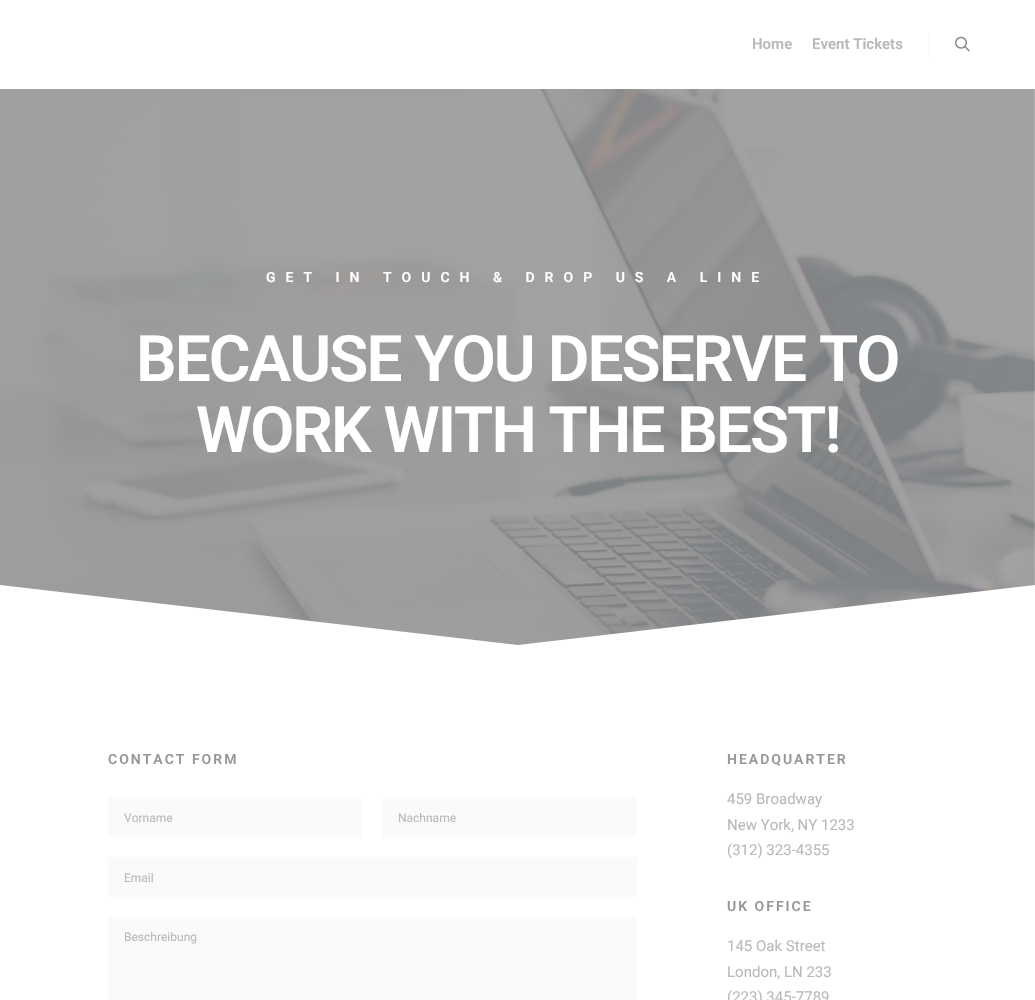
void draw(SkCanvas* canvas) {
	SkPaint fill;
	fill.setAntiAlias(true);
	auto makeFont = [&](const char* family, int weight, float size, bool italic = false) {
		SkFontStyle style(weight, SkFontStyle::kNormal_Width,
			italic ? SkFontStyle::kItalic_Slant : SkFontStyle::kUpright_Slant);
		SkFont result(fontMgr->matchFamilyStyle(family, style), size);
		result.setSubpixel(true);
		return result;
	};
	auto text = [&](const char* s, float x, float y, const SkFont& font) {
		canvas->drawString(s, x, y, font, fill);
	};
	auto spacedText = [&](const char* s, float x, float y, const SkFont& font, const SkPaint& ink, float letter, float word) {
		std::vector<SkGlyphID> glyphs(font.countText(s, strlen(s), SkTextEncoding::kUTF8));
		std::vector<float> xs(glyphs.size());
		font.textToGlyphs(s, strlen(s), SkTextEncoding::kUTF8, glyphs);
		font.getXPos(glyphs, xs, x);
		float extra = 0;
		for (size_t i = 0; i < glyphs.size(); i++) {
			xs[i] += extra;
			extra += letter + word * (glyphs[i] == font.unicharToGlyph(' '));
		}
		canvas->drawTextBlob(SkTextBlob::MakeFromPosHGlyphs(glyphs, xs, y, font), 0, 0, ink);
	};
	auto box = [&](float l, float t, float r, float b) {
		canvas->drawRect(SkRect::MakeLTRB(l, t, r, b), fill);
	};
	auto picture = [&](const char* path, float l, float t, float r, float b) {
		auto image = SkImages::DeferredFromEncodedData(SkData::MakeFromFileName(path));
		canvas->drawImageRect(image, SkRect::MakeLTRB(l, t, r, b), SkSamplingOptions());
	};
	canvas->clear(0xFFFFFFFF);
	fill.setColor(0xFFF9F9F9);
	box(928, 32, 929, 57);
	picture("image0.png", 955, 36, 970, 52);
	picture("image1.png", 0, 89, 1035, 645);
	fill.setColor(0xFFFFFFFF);
	canvas->drawPath(SkPathBuilder().moveTo(518, 645).lineTo(0, 585).lineTo(0, 648).lineTo(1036, 648).lineTo(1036, 585).close().detach(), fill);
	fill.setColor(0xFFFAFAFA);
	box(108, 797, 362, 837);
	box(382, 797, 637, 837);
	box(108, 857, 637, 897);
	box(108, 917, 637, 1000);
	auto font1 = makeFont("Roboto", 600, 15);
	fill.setColor(0xFFB9B9B9);
	text("Home", 752, 49, font1);
	text("Event Tickets", 812, 49, font1);
	auto font2 = makeFont("Roboto", 600, 14);
	fill.setColor(0xFFFFFFFF);
	spacedText("GET IN TOUCH & DROP US A LINE", 266, 282, font2, fill, 10, 0);
	auto font3 = makeFont("Roboto", 600, 64);
	spacedText("BECAUSE YOU DESERVE TO", 136, 381, font3, fill, -2, 0);
	spacedText("WORK WITH THE BEST!", 196, 452, font3, fill, -2, 0);
	fill.setColor(0xFF979797);
	spacedText("CONTACT FORM", 108, 764, font2, fill, 2, 0);
	auto font4 = makeFont("Roboto", 400, 12);
	fill.setColor(0xFFB9B9B9);
	text("Vorname", 124, 822, font4);
	text("Nachname", 398, 822, font4);
	text("Email", 124, 882, font4);
	text("Beschreibung", 124, 941, font4);
	fill.setColor(0xFF979797);
	spacedText("HEADQUARTER", 727, 764, font2, fill, 2, 0);
	auto font5 = makeFont("Roboto", 400, 15);
	fill.setColor(0xFFB9B9B9);
	text("459 Broadway", 727, 804, font5);
	text("New York, NY 1233", 727, 830, font5);
	text("(312) 323-4355", 727, 855, font5);
	fill.setColor(0xFF979797);
	spacedText("UK OFFICE", 727, 911, font2, fill, 2, 0);
	fill.setColor(0xFFB9B9B9);
	text("145 Oak Street", 727, 951, font5);
	text("London, LN 233", 727, 977, font5);
	text("(223) 345-7789", 727, 1002, font5);
}
